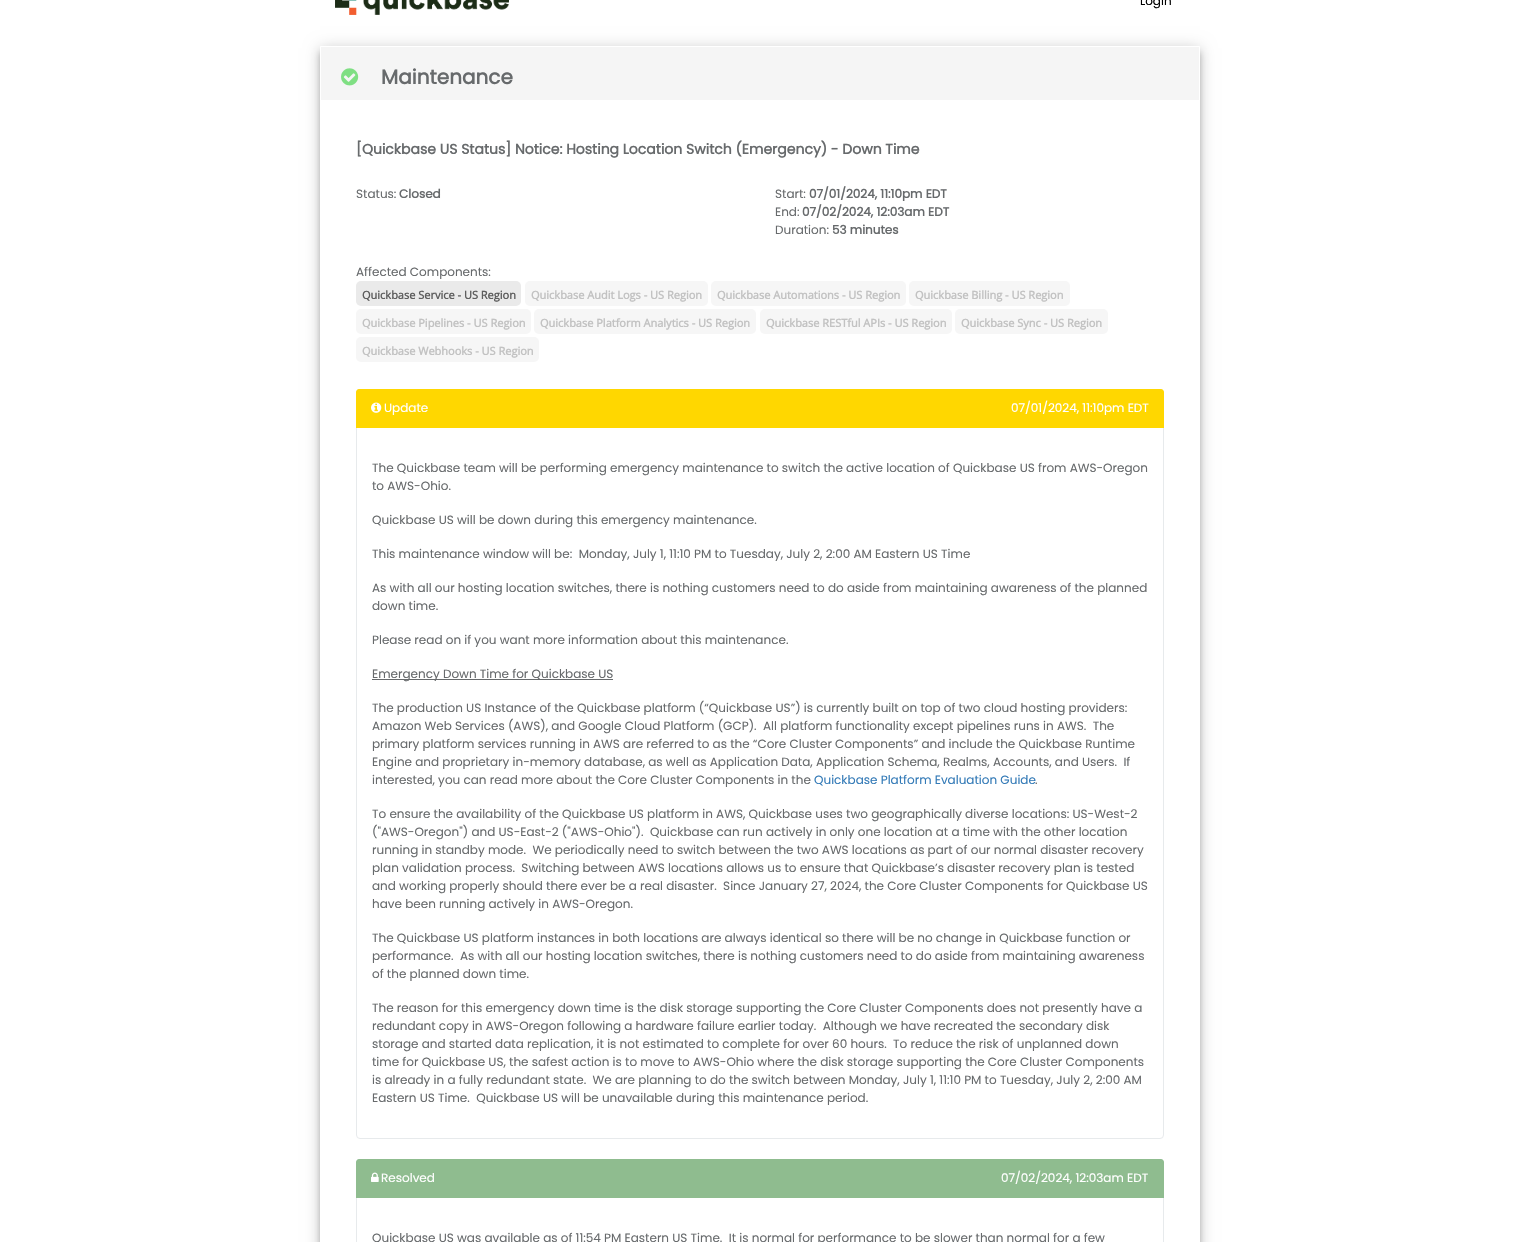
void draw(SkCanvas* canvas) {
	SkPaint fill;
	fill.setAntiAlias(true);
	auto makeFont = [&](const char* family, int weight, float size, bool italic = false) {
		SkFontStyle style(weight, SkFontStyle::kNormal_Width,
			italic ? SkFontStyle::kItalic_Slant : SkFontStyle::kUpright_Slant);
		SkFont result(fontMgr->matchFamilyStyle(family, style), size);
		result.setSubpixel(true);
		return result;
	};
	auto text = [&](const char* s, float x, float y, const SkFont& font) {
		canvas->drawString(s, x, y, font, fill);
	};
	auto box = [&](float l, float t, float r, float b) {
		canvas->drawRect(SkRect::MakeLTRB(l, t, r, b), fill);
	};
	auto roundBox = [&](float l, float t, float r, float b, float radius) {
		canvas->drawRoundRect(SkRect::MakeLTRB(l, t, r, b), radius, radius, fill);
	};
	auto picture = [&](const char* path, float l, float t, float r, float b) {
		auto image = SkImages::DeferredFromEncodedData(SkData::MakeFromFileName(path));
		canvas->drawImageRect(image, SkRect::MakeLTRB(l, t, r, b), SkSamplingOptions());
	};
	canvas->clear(0xFFFFFFFF);
	picture("image0.png", 335, 0, 509, 15);
	canvas->save();
	canvas->clipPath(SkPathBuilder(SkPathFillType::kEvenOdd).moveTo(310, 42).lineTo(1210, 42).lineTo(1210, 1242).lineTo(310, 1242).close().moveTo(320, 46).lineTo(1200, 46).lineTo(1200, 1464).lineTo(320, 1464).close().detach(), true);
	fill.setColor(0x3B000000);
	fill.setMaskFilter(SkMaskFilter::MakeBlur(kNormal_SkBlurStyle, 3));
	canvas->drawRect(SkRect::MakeLTRB(320, 52, 1200, 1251), fill);
	fill.setMaskFilter(nullptr);
	canvas->restore();
	canvas->save();
	canvas->clipPath(SkPathBuilder(SkPathFillType::kEvenOdd).moveTo(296, 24).lineTo(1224, 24).lineTo(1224, 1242).lineTo(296, 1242).close().moveTo(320, 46).lineTo(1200, 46).lineTo(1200, 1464).lineTo(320, 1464).close().detach(), true);
	fill.setColor(0x30000000);
	fill.setMaskFilter(SkMaskFilter::MakeBlur(kNormal_SkBlurStyle, 7.5f));
	canvas->drawRect(SkRect::MakeLTRB(320, 48, 1200, 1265), fill);
	fill.setMaskFilter(nullptr);
	canvas->restore();
	fill.setColor(0xFFF5F5F5);
	canvas->drawPath(SkPathBuilder().moveTo(322, 46).lineTo(1198, 46).cubicTo(1199, 46, 1200, 47, 1200, 48).lineTo(1200, 100).lineTo(320, 100).lineTo(320, 48).cubicTo(320, 47, 321, 46, 322, 46).close().detach(), fill);
	fill.setColor(0xFFFFFFFF);
	box(321, 46, 1199, 47);
	box(1199, 47, 1200, 100);
	box(320, 47, 321, 100);
	picture("image1.png", 341, 68, 359, 86);
	fill.setColor(0xFFEAEAEA);
	roundBox(356, 281, 521, 306, 5);
	fill.setColor(0xFFF6F6F6);
	roundBox(525, 281, 708, 306, 5);
	roundBox(711, 281, 906, 306, 5);
	roundBox(909, 281, 1070, 306, 5);
	roundBox(356, 309, 531, 334, 5);
	roundBox(534, 309, 756, 334, 5);
	roundBox(760, 309, 952, 334, 5);
	roundBox(955, 309, 1108, 334, 5);
	roundBox(356, 337, 539, 362, 5);
	fill.setStyle(SkPaint::kStroke_Style);
	fill.setStrokeWidth(1);
	fill.setColor(0xFFE7EAEC);
	canvas->drawRoundRect(SkRect::MakeLTRB(356.5f, 389.5f, 1163.5f, 1138.5f), 3.5f, 3.5f, fill);
	fill.setStyle(SkPaint::kFill_Style);
	fill.setColor(0xFFFFD700);
	canvas->drawPath(SkPathBuilder().moveTo(359, 389).lineTo(1161, 389).cubicTo(1162.5f, 389, 1164, 390.5f, 1164, 392).lineTo(1164, 428).lineTo(356, 428).lineTo(356, 392).cubicTo(356, 390.5f, 357.5f, 389, 359, 389).close().detach(), fill);
	picture("image2.png", 371, 402, 382, 413);
	fill.setColor(0xFF676A6C);
	box(372, 679, 613, 680);
	fill.setStyle(SkPaint::kStroke_Style);
	fill.setColor(0xFFE7EAEC);
	canvas->drawRoundRect(SkRect::MakeLTRB(356.5f, 1159.5f, 1163.5f, 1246.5f), 3.5f, 3.5f, fill);
	fill.setStyle(SkPaint::kFill_Style);
	fill.setColor(0xFF8FBC8F);
	canvas->drawPath(SkPathBuilder().moveTo(359, 1159).lineTo(1161, 1159).cubicTo(1162.5f, 1159, 1164, 1160.5f, 1164, 1162).lineTo(1164, 1198).lineTo(356, 1198).lineTo(356, 1162).cubicTo(356, 1160.5f, 357.5f, 1159, 359, 1159).close().detach(), fill);
	picture("image3.png", 371, 1172, 379, 1182);
	auto font1 = makeFont("Poppins", 400, 12);
	fill.setColor(0xFF000000);
	text("Login", 1140, 5, font1);
	auto font2 = makeFont("Poppins", 700, 20);
	fill.setColor(0xFF676A6C);
	text("Maintenance", 381, 84, font2);
	auto font3 = makeFont("Poppins", 700, 14);
	text("[Quickbase US Status] Notice: Hosting Location Switch (Emergency) - Down Time", 356, 154, font3);
	text("Status:", 356, 198, font1);
	auto font4 = makeFont("Poppins", 700, 12);
	text("Closed", 399, 198, font4);
	text("Start:", 775, 198, font1);
	text("07/01/2024, 11:10pm EDT", 809, 198, font4);
	text("End:", 775, 216, font1);
	text("07/02/2024, 12:03am EDT", 802, 216, font4);
	text("Duration:", 775, 234, font1);
	text("53 minutes", 832, 234, font4);
	text("Affected Components:", 356, 276, font1);
	auto font5 = makeFont("Open Sans", 700, 11);
	fill.setColor(0xFF5E5E5E);
	text("Quickbase Service - US Region", 362, 299, font5);
	fill.setColor(0xFFC2C2C2);
	text("Quickbase Audit Logs - US Region", 531, 299, font5);
	text("Quickbase Automations - US Region", 717, 299, font5);
	text("Quickbase Billing - US Region", 915, 299, font5);
	text("Quickbase Pipelines - US Region", 362, 327, font5);
	text("Quickbase Platform Analytics - US Region", 540, 327, font5);
	text("Quickbase RESTful APIs - US Region", 766, 327, font5);
	text("Quickbase Sync - US Region", 961, 327, font5);
	text("Quickbase Webhooks - US Region", 362, 355, font5);
	fill.setColor(0xFFFFFFFF);
	text("Update", 384, 412, font1);
	text("07/01/2024, 11:10pm EDT", 1011, 412, font1);
	fill.setColor(0xFF676A6C);
	text("The Quickbase team will be performing emergency maintenance to switch the active location of Quickbase US from AWS-Oregon", 372, 472, font1);
	text("to AWS-Ohio.", 372, 490, font1);
	text("Quickbase US will be down during this emergency maintenance.", 372, 524, font1);
	text("This maintenance window will be:  Monday, July 1, 11:10 PM to Tuesday, July 2, 2:00 AM Eastern US Time", 372, 558, font1);
	text("As with all our hosting location switches, there is nothing customers need to do aside from maintaining awareness of the planned", 372, 592, font1);
	text("down time.", 372, 610, font1);
	text("Please read on if you want more information about this maintenance.", 372, 644, font1);
	text("Emergency Down Time for Quickbase US", 372, 678, font1);
	text("The production US Instance of the Quickbase platform (“Quickbase US”) is currently built on top of two cloud hosting providers:", 372, 712, font1);
	text("Amazon Web Services (AWS), and Google Cloud Platform (GCP).  All platform functionality except pipelines runs in AWS.  The", 372, 730, font1);
	text("primary platform services running in AWS are referred to as the “Core Cluster Components” and include the Quickbase Runtime", 372, 748, font1);
	text("Engine and proprietary in-memory database, as well as Application Data, Application Schema, Realms, Accounts, and Users.  If", 372, 766, font1);
	text("interested, you can read more about the Core Cluster Components in the", 372, 784, font1);
	fill.setColor(0xFF337AB7);
	text("Quickbase Platform Evaluation Guide", 814, 784, font1);
	fill.setColor(0xFF676A6C);
	text(".", 1035, 784, font1);
	text("To ensure the availability of the Quickbase US platform in AWS, Quickbase uses two geographically diverse locations: US-West-2", 372, 818, font1);
	text("(\"AWS-Oregon\") and US-East-2 (\"AWS-Ohio\").  Quickbase can run actively in only one location at a time with the other location", 372, 836, font1);
	text("running in standby mode.  We periodically need to switch between the two AWS locations as part of our normal disaster recovery", 372, 854, font1);
	text("plan validation process.  Switching between AWS locations allows us to ensure that Quickbase’s disaster recovery plan is tested", 372, 872, font1);
	text("and working properly should there ever be a real disaster.  Since January 27, 2024, the Core Cluster Components for Quickbase US", 372, 890, font1);
	text("have been running actively in AWS-Oregon.", 372, 908, font1);
	text("The Quickbase US platform instances in both locations are always identical so there will be no change in Quickbase function or", 372, 942, font1);
	text("performance.  As with all our hosting location switches, there is nothing customers need to do aside from maintaining awareness", 372, 960, font1);
	text("of the planned down time.", 372, 978, font1);
	text("The reason for this emergency down time is the disk storage supporting the Core Cluster Components does not presently have a", 372, 1012, font1);
	text("redundant copy in AWS-Oregon following a hardware failure earlier today.  Although we have recreated the secondary disk", 372, 1030, font1);
	text("storage and started data replication, it is not estimated to complete for over 60 hours.  To reduce the risk of unplanned down", 372, 1048, font1);
	text("time for Quickbase US, the safest action is to move to AWS-Ohio where the disk storage supporting the Core Cluster Components", 372, 1066, font1);
	text("is already in a fully redundant state.  We are planning to do the switch between Monday, July 1, 11:10 PM to Tuesday, July 2, 2:00 AM", 372, 1084, font1);
	text("Eastern US Time.  Quickbase US will be unavailable during this maintenance period.", 372, 1102, font1);
	fill.setColor(0xFFFFFFFF);
	text("Resolved", 381, 1182, font1);
	text("07/02/2024, 12:03am EDT", 1001, 1182, font1);
	fill.setColor(0xFF676A6C);
	text("Quickbase US was available as of 11:54 PM Eastern US Time.  It is normal for performance to be slower than normal for a few", 372, 1242, font1);
}
